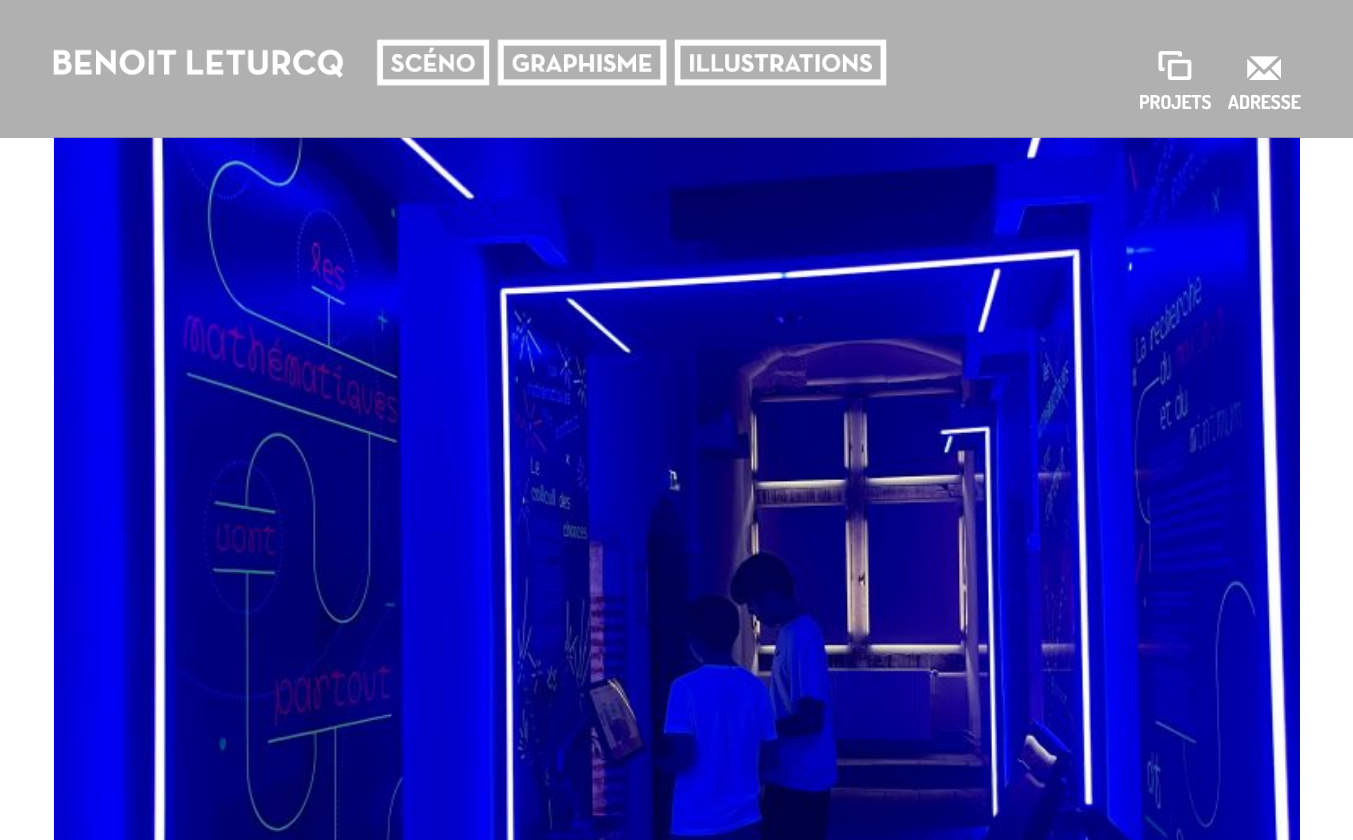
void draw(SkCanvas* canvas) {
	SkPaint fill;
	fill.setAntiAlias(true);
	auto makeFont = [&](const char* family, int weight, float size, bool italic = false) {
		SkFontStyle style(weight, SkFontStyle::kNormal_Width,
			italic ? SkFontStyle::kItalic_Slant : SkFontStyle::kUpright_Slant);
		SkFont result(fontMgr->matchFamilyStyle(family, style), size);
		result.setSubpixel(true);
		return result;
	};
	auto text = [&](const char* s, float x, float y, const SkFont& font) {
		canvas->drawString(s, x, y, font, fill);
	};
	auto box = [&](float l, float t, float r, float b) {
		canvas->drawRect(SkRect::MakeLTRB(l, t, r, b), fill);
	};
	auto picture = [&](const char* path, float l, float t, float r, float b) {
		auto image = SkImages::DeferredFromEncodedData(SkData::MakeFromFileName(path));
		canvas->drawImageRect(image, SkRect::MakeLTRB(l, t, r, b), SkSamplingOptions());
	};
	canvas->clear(0xFFFFFFFF);
	picture("image4.png", 53, 137, 1300, 840);
	fill.setColor(0x4F000000);
	box(0, 0, 1353, 138);
	picture("image0.png", 53, 49, 344, 78);
	picture("image1.png", 376, 39, 887, 86);
	picture("image2.png", 1158, 51, 1192, 80);
	picture("image3.png", 1247, 56, 1281, 80);
	auto font1 = makeFont("Dosis", 700, 19);
	fill.setColor(0xFFFFFFFF);
	text("PROJETS", 1139, 109, font1);
	text("ADRESSE", 1228, 109, font1);
}
